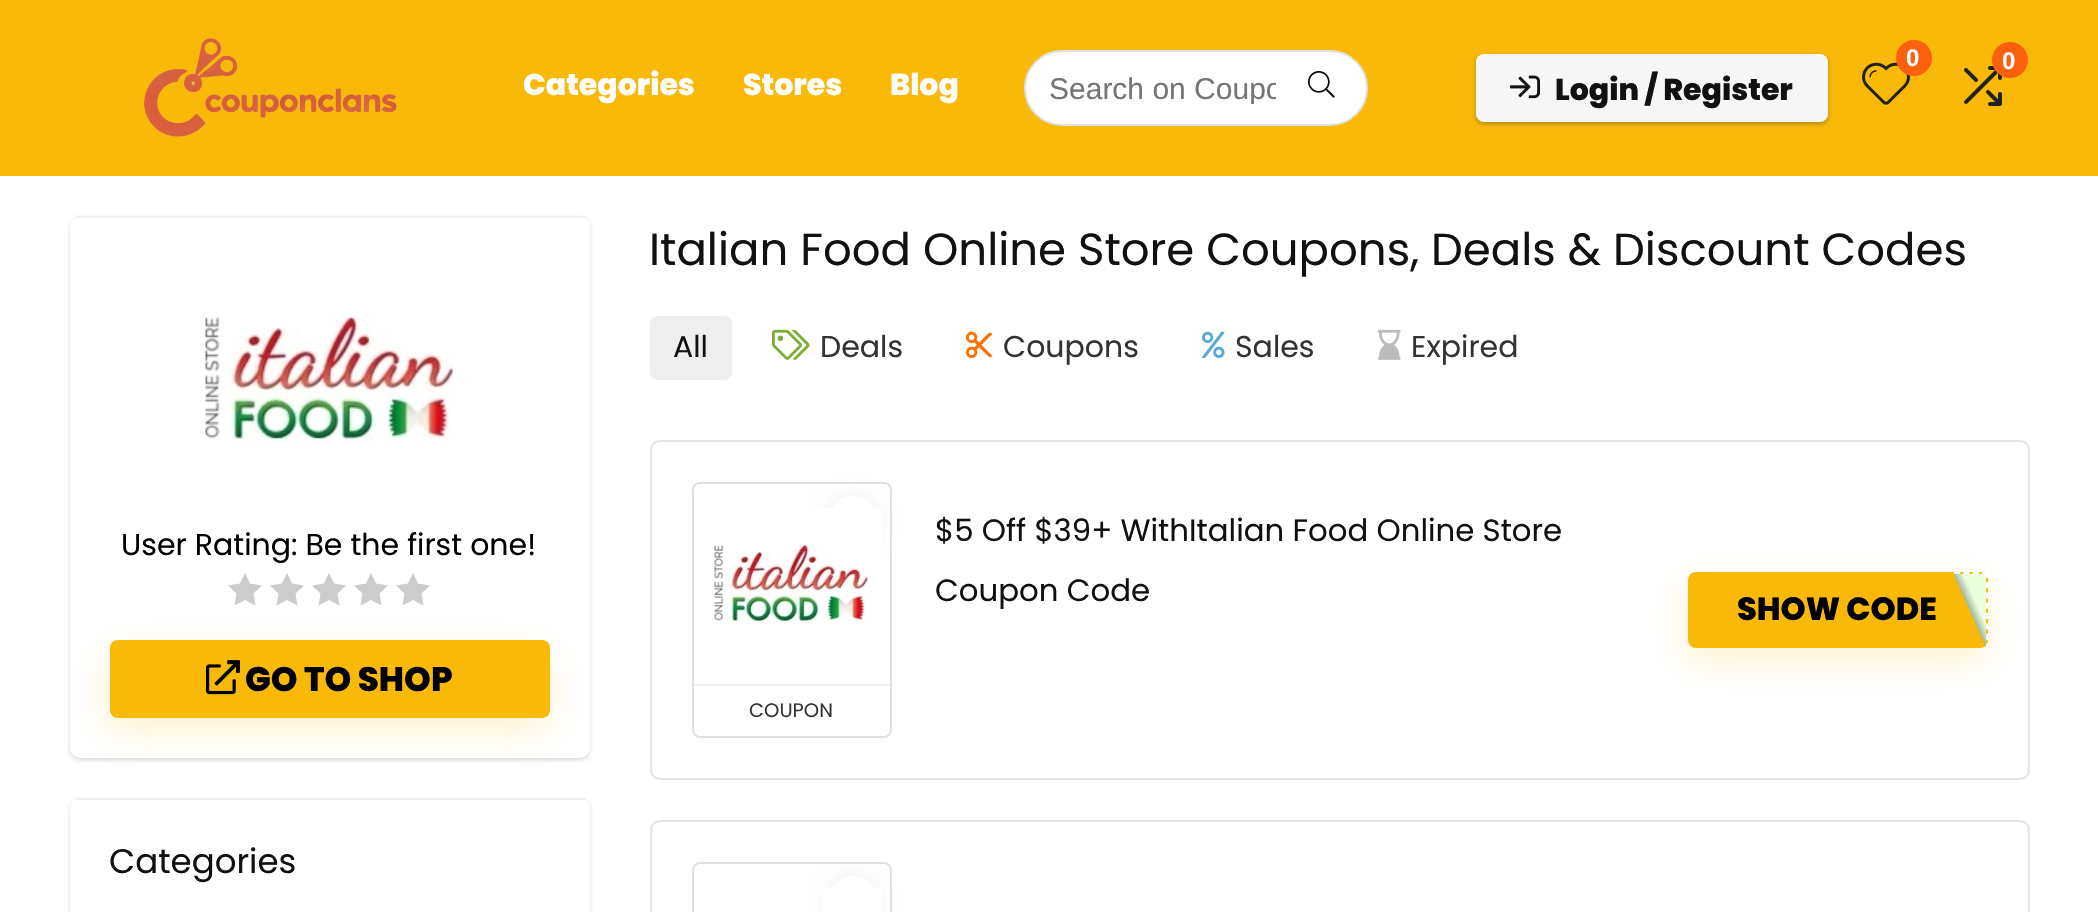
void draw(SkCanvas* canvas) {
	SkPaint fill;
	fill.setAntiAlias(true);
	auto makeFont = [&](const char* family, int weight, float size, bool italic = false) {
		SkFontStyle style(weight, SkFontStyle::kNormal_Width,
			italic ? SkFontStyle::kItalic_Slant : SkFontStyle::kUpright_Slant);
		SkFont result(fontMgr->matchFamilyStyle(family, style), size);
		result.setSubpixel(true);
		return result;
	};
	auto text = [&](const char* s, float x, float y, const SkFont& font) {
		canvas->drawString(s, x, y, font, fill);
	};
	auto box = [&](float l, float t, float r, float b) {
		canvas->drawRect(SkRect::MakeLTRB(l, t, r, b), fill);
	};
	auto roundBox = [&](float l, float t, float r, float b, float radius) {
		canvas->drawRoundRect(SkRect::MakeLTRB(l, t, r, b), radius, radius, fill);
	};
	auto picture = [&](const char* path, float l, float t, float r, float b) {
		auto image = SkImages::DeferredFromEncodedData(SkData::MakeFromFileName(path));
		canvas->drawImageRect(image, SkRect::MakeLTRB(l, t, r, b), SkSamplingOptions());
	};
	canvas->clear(0xFFFFFFFF);
	fill.setColor(0xFFF9B909);
	box(0, 0, 2098, 176);
	picture("image0.png", 143, 38, 397, 137);
	fill.setColor(0xFFFFFFFF);
	canvas->drawRoundRect(SkRect::MakeLTRB(1025, 51, 1367, 125), 37, 37, fill);
	fill.setStyle(SkPaint::kStroke_Style);
	fill.setStrokeWidth(2);
	fill.setColor(0xFFE1E1E1);
	canvas->drawRoundRect(SkRect::MakeLTRB(1025, 51, 1367, 125), 37, 37, fill);
	picture("image1.png", 1308, 71, 1335, 98);
	picture("image2.png", 1862, 62, 1910, 105);
	fill.setStyle(SkPaint::kFill_Style);
	fill.setColor(0xFFF9610E);
	canvas->drawCircle(1914, 58, 18, fill);
	picture("image3.png", 1964, 66, 2002, 106);
	canvas->drawCircle(2010, 60, 18, fill);
	fill.setColor(0x14000000);
	fill.setMaskFilter(SkMaskFilter::MakeBlur(kNormal_SkBlurStyle, 2));
	canvas->drawRoundRect(SkRect::MakeLTRB(1476, 56, 1828, 124), 8, 8, fill);
	fill.setMaskFilter(nullptr);
	fill.setColor(0x4D3C4043);
	fill.setMaskFilter(SkMaskFilter::MakeBlur(kNormal_SkBlurStyle, 2));
	canvas->drawRoundRect(SkRect::MakeLTRB(1476, 56, 1828, 124), 8, 8, fill);
	fill.setMaskFilter(nullptr);
	fill.setColor(0xFFF6F6F6);
	roundBox(1476, 54, 1828, 122, 8);
	picture("image4.png", 1510, 75, 1540, 99);
	fill.setColor(0x26000000);
	fill.setMaskFilter(SkMaskFilter::MakeBlur(kNormal_SkBlurStyle, 2));
	canvas->drawRoundRect(SkRect::MakeLTRB(70, 218, 590, 760), 10, 10, fill);
	fill.setMaskFilter(nullptr);
	fill.setColor(0xFFFFFFFF);
	roundBox(70, 216, 590, 758, 10);
	fill.setColor(0xFFEFEFEF);
	box(76, 216, 586, 218);
	picture("image5.png", 205, 316, 453, 445);
	fill.setColor(0xFFCCCCCC);
	canvas->drawPath(SkPathBuilder().moveTo(262, 585.5f).lineTo(250, 583.5f).lineTo(245, 573).lineTo(240, 583.5f).lineTo(228, 585.5f).lineTo(236.5f, 593.5f).lineTo(234.5f, 605.5f).lineTo(245, 600).lineTo(255.5f, 605.5f).lineTo(253.5f, 593.5f).close().detach(), fill);
	canvas->drawPath(SkPathBuilder().moveTo(304, 585.5f).lineTo(292, 583.5f).lineTo(287, 573).lineTo(282, 583.5f).lineTo(270, 585.5f).lineTo(278.5f, 593.5f).lineTo(276.5f, 605.5f).lineTo(287, 600).lineTo(297.5f, 605.5f).lineTo(295.5f, 593.5f).close().detach(), fill);
	canvas->drawPath(SkPathBuilder().moveTo(346, 585.5f).lineTo(334, 583.5f).lineTo(329, 573).lineTo(324, 583.5f).lineTo(312, 585.5f).lineTo(320.5f, 593.5f).lineTo(318.5f, 605.5f).lineTo(329, 600).lineTo(339.5f, 605.5f).lineTo(337.5f, 593.5f).close().detach(), fill);
	canvas->drawPath(SkPathBuilder().moveTo(388, 585.5f).lineTo(376, 583.5f).lineTo(371, 573).lineTo(366, 583.5f).lineTo(354, 585.5f).lineTo(362.5f, 593.5f).lineTo(360.5f, 605.5f).lineTo(371, 600).lineTo(381.5f, 605.5f).lineTo(379.5f, 593.5f).close().detach(), fill);
	canvas->drawPath(SkPathBuilder().moveTo(430, 585.5f).lineTo(418, 583.5f).lineTo(413, 573).lineTo(408, 583.5f).lineTo(396, 585.5f).lineTo(404.5f, 593.5f).lineTo(402.5f, 605.5f).lineTo(413, 600).lineTo(423.5f, 605.5f).lineTo(421.5f, 593.5f).close().detach(), fill);
	fill.setColor(0x33F9B909);
	fill.setMaskFilter(SkMaskFilter::MakeBlur(kNormal_SkBlurStyle, 19));
	canvas->drawRoundRect(SkRect::MakeLTRB(108, 652, 548, 730), 8, 8, fill);
	fill.setMaskFilter(nullptr);
	fill.setColor(0xFFF9B909);
	roundBox(110, 640, 550, 718, 8);
	picture("image6.png", 206, 660, 240, 695);
	fill.setColor(0x26000000);
	fill.setMaskFilter(SkMaskFilter::MakeBlur(kNormal_SkBlurStyle, 2));
	canvas->drawRoundRect(SkRect::MakeLTRB(70, 800, 590, 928), 10, 10, fill);
	fill.setMaskFilter(nullptr);
	fill.setColor(0xFFFFFFFF);
	roundBox(70, 798, 590, 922, 10);
	fill.setColor(0xFFEFEFEF);
	box(76, 798, 586, 800);
	fill.setColor(0xFFEEEEEE);
	roundBox(650, 316, 732, 380, 8);
	picture("image7.png", 772, 329, 810, 360);
	picture("image8.png", 966, 331, 993, 358);
	picture("image9.png", 1202, 331, 1225, 358);
	picture("image10.png", 1378, 329, 1401, 360);
	fill.setStyle(SkPaint::kStroke_Style);
	fill.setColor(0xFFE3E3E3);
	canvas->drawRoundRect(SkRect::MakeLTRB(651, 441, 2029, 779), 9, 9, fill);
	fill.setStyle(SkPaint::kFill_Style);
	fill.setColor(0x33F9B909);
	fill.setMaskFilter(SkMaskFilter::MakeBlur(kNormal_SkBlurStyle, 19));
	canvas->drawRoundRect(SkRect::MakeLTRB(1686, 584, 1986, 660), 8, 8, fill);
	fill.setMaskFilter(nullptr);
	fill.setColor(0xFFF9B909);
	roundBox(1688, 572, 1988, 648, 8);
	{
		const SkColor colors[] = {0x00FFFFFF, 0x00A6B79D, 0xFFA6B79D, 0xFFE9FFDD};
		const float stops[] = {0, 0.5f, 0.51f, 0.66f};
		const SkPoint ends[] = {{1943, 624}, {1997, 600}};
		fill.setShader(SkGradientShader::MakeLinear(ends, colors, stops, 4, SkTileMode::kClamp));
		fill.setAlpha(255);
	}
	box(1954, 574, 1986, 647);
	{
		const SkColor colors[] = {0x00FFFFFF, 0x00A6B79D, 0xFFA6B79D, 0xFFE9FFDD};
		const float stops[] = {0, 0.5f, 0.51f, 0.66f};
		const SkPoint ends[] = {{1975, 624}, {2029, 600}};
		fill.setShader(SkGradientShader::MakeLinear(ends, colors, stops, 4, SkTileMode::kClamp));
		fill.setAlpha(255);
	}
	box(1987, 574, 1988, 579);
	fill.setStyle(SkPaint::kStroke_Style);
	fill.setShader(nullptr);
	fill.setColor(0xFFFFFFFF);
	fill.setPathEffect(SkDashPathEffect::Make({{6, 3.34f}}, 0));
	canvas->drawPath(SkPathBuilder().moveTo(1954, 573).lineTo(1988, 573).detach(), fill);
	fill.setPathEffect(nullptr);
	fill.setPathEffect(SkDashPathEffect::Make({{6, 4.28f}}, 0));
	canvas->drawPath(SkPathBuilder().moveTo(1987, 572).lineTo(1987, 650).detach(), fill);
	fill.setPathEffect(nullptr);
	fill.setColor(0xFFDCE0E0);
	canvas->drawRoundRect(SkRect::MakeLTRB(693, 483, 891, 737), 7, 7, fill);
	fill.setStyle(SkPaint::kFill_Style);
	fill.setColor(0xFFEFEFEF);
	fill.setMaskFilter(SkMaskFilter::MakeBlur(kNormal_SkBlurStyle, 10));
	canvas->drawRoundRect(SkRect::MakeLTRB(828, 496, 878, 546), 25, 25, fill);
	fill.setMaskFilter(nullptr);
	fill.setColor(0xFFFFFFFF);
	canvas->drawCircle(853, 521, 25, fill);
	picture("image11.png", 714, 508, 882, 625);
	fill.setColor(0xFFF0F0F0);
	box(694, 684, 890, 686);
	fill.setStyle(SkPaint::kStroke_Style);
	fill.setColor(0xFFE3E3E3);
	canvas->drawRoundRect(SkRect::MakeLTRB(651, 821, 2029, 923), 9, 9, fill);
	fill.setColor(0xFFDCE0E0);
	canvas->drawRoundRect(SkRect::MakeLTRB(693, 863, 891, 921), 7, 7, fill);
	fill.setStyle(SkPaint::kFill_Style);
	fill.setColor(0xFFEFEFEF);
	fill.setMaskFilter(SkMaskFilter::MakeBlur(kNormal_SkBlurStyle, 10));
	canvas->drawRoundRect(SkRect::MakeLTRB(828, 876, 878, 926), 25, 25, fill);
	fill.setMaskFilter(nullptr);
	fill.setColor(0xFFFFFFFF);
	canvas->drawCircle(853, 901, 25, fill);
	box(823, 888, 882, 912);
	auto font1 = makeFont("Poppins", 800, 30);
	text("Categories", 523, 95, font1);
	text("Stores", 743, 95, font1);
	text("Blog", 890, 95, font1);
	canvas->save();
	canvas->clipRect(SkRect::MakeLTRB(1050, 70, 1276, 104));
	auto font2 = makeFont("Liberation Sans", 400, 30);
	fill.setColor(0xFF757575);
	text("Search on Coupo", 1049, 99, font2);
	canvas->restore();
	auto font3 = makeFont("Liberation Sans", 700, 24);
	fill.setColor(0xFFFFFFFF);
	text("0", 1906, 66, font3);
	text("0", 2002, 69, font3);
	fill.setColor(0xFF111111);
	text("Login / Register", 1555, 100, font1);
	auto font4 = makeFont("Poppins", 400, 45);
	text("Italian Food Online Store Coupons, Deals & Discount Codes", 649, 265, font4);
	auto font5 = makeFont("Poppins", 400, 30);
	fill.setColor(0xFF000000);
	text("User Rating: Be the first one!", 121, 555, font5);
	auto font6 = makeFont("Poppins", 800, 34);
	text("GO TO SHOP", 245, 691, font6);
	auto font7 = makeFont("Poppins", 400, 34);
	fill.setColor(0xFF111111);
	text("Categories", 109, 873, font7);
	text("All", 673, 357, font5);
	fill.setColor(0xFF333333);
	text("Deals", 820, 357, font5);
	text("Coupons", 1003, 357, font5);
	text("Sales", 1235, 357, font5);
	text("Expired", 1411, 357, font5);
	auto font8 = makeFont("Poppins", 400, 30.8f);
	fill.setColor(0xFF111111);
	text("$5 Off $39+ WithItalian Food Online Store", 935, 541, font8);
	text("Coupon Code", 935, 601, font8);
	auto font9 = makeFont("Poppins", 800, 32);
	fill.setColor(0xFF000000);
	text("SHOW CODE", 1737, 620, font9);
	auto font10 = makeFont("Poppins", 400, 19.5f);
	fill.setColor(0xFF333333);
	text("COUPON", 749, 717, font10);
}
